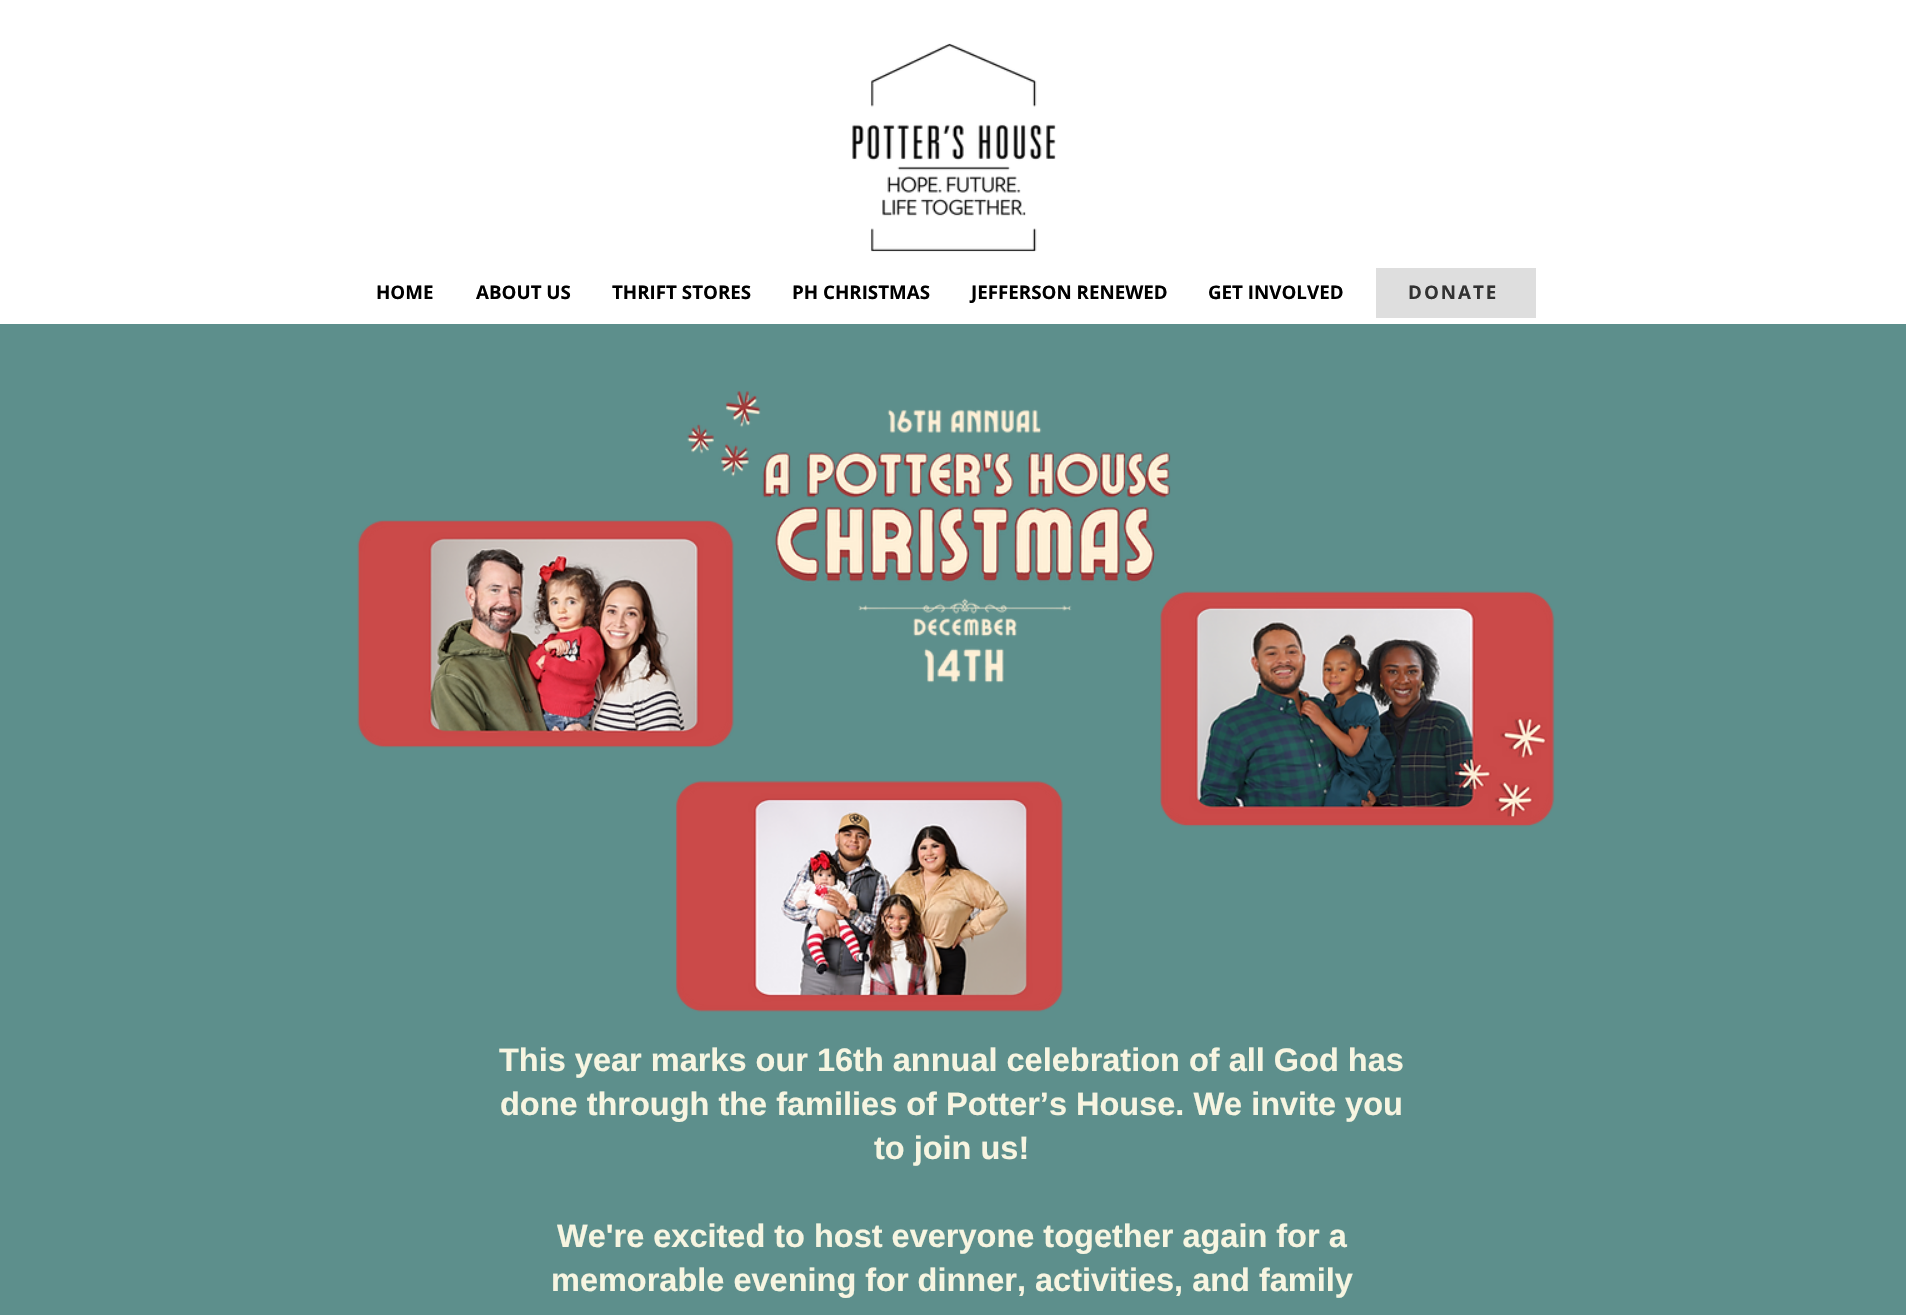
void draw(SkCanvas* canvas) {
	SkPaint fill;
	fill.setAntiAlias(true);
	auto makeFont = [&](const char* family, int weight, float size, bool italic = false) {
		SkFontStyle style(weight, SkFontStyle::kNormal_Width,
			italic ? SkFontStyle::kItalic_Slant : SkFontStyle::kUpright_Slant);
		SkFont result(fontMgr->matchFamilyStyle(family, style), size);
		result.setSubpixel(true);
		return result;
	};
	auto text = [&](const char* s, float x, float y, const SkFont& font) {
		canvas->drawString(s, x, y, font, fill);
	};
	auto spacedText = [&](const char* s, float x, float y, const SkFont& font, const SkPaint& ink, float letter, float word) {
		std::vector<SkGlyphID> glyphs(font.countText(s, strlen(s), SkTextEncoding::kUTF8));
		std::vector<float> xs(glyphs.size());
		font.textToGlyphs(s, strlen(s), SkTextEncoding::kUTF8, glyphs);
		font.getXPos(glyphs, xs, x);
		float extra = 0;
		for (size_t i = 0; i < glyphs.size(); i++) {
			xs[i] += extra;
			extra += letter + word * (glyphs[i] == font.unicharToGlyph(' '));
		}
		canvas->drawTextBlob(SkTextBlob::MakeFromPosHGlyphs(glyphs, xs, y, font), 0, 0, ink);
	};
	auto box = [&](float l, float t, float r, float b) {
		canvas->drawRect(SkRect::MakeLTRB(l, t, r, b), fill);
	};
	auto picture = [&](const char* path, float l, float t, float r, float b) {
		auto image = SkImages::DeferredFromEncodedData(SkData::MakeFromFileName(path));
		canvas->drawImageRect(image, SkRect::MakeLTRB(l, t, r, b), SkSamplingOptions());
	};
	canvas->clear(0xFFFFFFFF);
	canvas->save();
	canvas->clipPath(SkPathBuilder(SkPathFillType::kEvenOdd).moveTo(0, 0).lineTo(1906, 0).lineTo(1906, 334).lineTo(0, 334).close().moveTo(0, 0).lineTo(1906, 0).lineTo(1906, 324).lineTo(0, 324).close().detach(), true);
	fill.setColor(0xB3000000);
	fill.setMaskFilter(SkMaskFilter::MakeBlur(kNormal_SkBlurStyle, 3));
	canvas->drawRect(SkRect::MakeLTRB(0, 0, 1906, 324), fill);
	fill.setMaskFilter(nullptr);
	canvas->restore();
	fill.setColor(0x99FFFFFF);
	box(0, 323, 1906, 324);
	picture("image0.png", 852, 43, 1056, 252);
	fill.setColor(0xFFDEDEDE);
	box(1376, 268, 1536, 318);
	fill.setColor(0xFF5D8F8C);
	box(0, 324, 1906, 1315);
	picture("image2.png", 687, 391, 1171, 683);
	picture("image1.png", 357, 520, 734, 748);
	picture("image3.png", 1160, 591, 1555, 827);
	picture("image4.png", 676, 781, 1063, 1012);
	auto font1 = makeFont("Open Sans", 700, 18.75f);
	fill.setColor(0xFF000000);
	text("HOME", 376, 299, font1);
	text("ABOUT US", 476, 299, font1);
	text("THRIFT STORES", 612, 299, font1);
	text("PH CHRISTMAS", 792, 299, font1);
	text("JEFFERSON RENEWED", 971, 299, font1);
	text("GET INVOLVED", 1208, 299, font1);
	fill.setColor(0xFF323232);
	spacedText("DONATE", 1408, 299, font1, fill, 2, 0);
	auto font2 = makeFont("Liberation Sans", 700, 32.5f);
	fill.setColor(0xFFF7F5E1);
	text("This year marks our 16th annual celebration of all God has", 499, 1071, font2);
	text("done through the families of Potter’s House. We invite you", 500, 1115, font2);
	text("to join us!", 874, 1159, font2);
	text("We're excited to host everyone together again for a", 557, 1247, font2);
	text("memorable evening for dinner, activities, and family", 551, 1291, font2);
}
